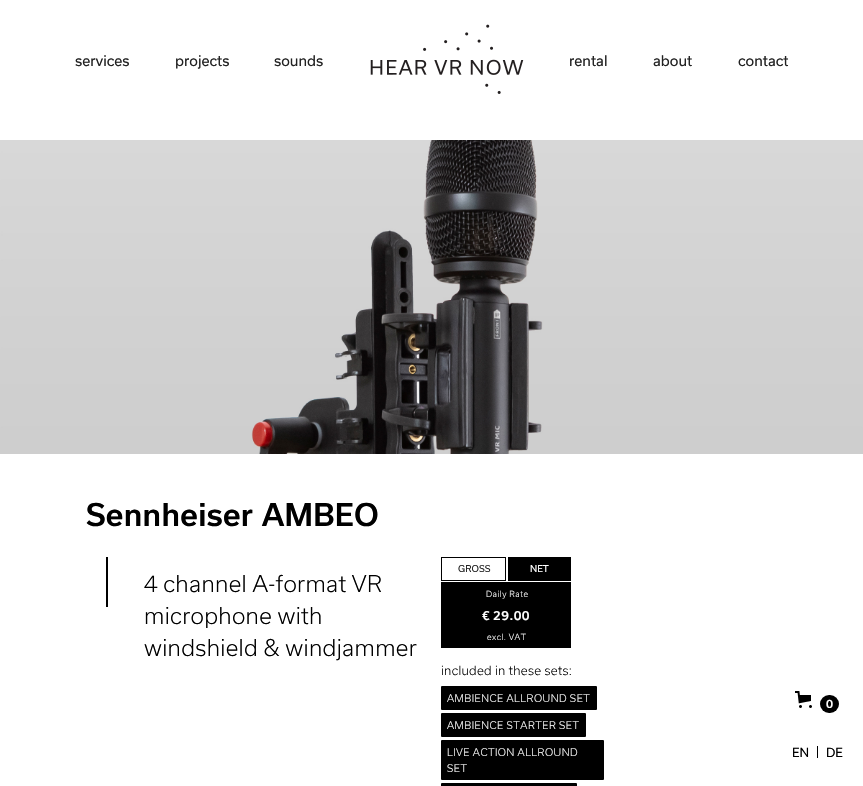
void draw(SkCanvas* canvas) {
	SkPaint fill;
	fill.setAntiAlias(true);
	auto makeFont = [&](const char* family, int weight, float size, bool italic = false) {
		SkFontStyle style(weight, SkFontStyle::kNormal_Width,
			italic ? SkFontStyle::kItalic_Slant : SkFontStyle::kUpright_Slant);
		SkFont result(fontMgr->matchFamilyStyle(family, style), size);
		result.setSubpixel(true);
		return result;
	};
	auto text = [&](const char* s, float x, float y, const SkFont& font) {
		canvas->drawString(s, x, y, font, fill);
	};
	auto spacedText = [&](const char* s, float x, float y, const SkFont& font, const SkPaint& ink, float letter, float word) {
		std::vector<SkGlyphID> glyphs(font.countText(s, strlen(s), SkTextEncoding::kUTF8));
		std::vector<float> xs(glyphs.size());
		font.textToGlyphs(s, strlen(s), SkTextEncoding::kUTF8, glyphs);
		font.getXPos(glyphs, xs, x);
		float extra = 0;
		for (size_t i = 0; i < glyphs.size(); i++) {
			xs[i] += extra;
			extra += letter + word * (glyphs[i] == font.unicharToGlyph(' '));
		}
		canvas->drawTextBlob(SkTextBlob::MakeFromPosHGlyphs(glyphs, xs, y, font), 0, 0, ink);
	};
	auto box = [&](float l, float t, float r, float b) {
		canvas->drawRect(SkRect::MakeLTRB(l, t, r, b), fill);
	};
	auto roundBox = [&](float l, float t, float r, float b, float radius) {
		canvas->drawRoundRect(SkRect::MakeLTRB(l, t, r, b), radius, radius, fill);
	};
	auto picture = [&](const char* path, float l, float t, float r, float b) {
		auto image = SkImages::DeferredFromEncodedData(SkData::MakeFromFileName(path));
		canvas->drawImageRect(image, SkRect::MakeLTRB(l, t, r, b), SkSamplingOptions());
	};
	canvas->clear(0xFFFFFFFF);
	picture("image0.png", 370, 24, 524, 94);
	picture("image1.png", 0, 140, 863, 454);
	fill.setColor(0xFF000000);
	box(106, 557, 108, 607);
	fill.setStyle(SkPaint::kStroke_Style);
	fill.setStrokeWidth(1);
	canvas->drawRect(SkRect::MakeLTRB(441.5f, 557.5f, 505.5f, 580.5f), fill);
	fill.setStyle(SkPaint::kFill_Style);
	box(508, 557, 571, 581);
	box(441, 582, 571, 648);
	roundBox(441, 686, 597, 710, 1);
	roundBox(441, 713, 586, 737, 1);
	roundBox(441, 740, 604, 780, 1);
	roundBox(441, 783, 577, 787, 1);
	picture("image2.png", 795, 691, 812, 708);
	roundBox(820, 695, 839, 713, 9);
	box(817, 746, 818, 758);
	auto font1 = makeFont("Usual", 400, 14);
	fill.setColor(0xFF222222);
	text("services", 75, 66, font1);
	text("projects", 175, 66, font1);
	text("sounds", 274, 66, font1);
	text("rental", 569, 66, font1);
	text("about", 653, 66, font1);
	text("contact", 738, 66, font1);
	auto font2 = makeFont("Usual", 500, 30);
	fill.setColor(0xFF000000);
	spacedText("Sennheiser AMBEO", 86, 526, font2, fill, 0.3f, 0);
	auto font3 = makeFont("Usual", 300, 22);
	spacedText("4 channel A-format VR", 144, 592, font3, fill, 0.3f, 0);
	spacedText("microphone with", 144, 624, font3, fill, 0.3f, 0);
	spacedText("windshield & windjammer", 144, 656, font3, fill, 0.3f, 0);
	auto font4 = makeFont("Usual", 400, 9);
	fill.setColor(0xFF222222);
	text("GROSS", 458, 572, font4);
	fill.setColor(0xFFFFFFFF);
	text("NET", 530, 572, font4);
	auto font5 = makeFont("Usual", 300, 8);
	spacedText("Daily Rate", 486, 597, font5, fill, 0.5f, 0);
	auto font6 = makeFont("Usual", 500, 12);
	spacedText("€", 482, 620, font6, fill, 0.3f, 0);
	spacedText("29.00", 493, 620, font6, fill, 0.5f, 0);
	spacedText("excl. VAT", 487, 640, font5, fill, 0.5f, 0);
	auto font7 = makeFont("Usual", 300, 12);
	fill.setColor(0xFF000000);
	spacedText("included in these sets:", 441, 675, font7, fill, 0.3f, 0);
	auto font8 = makeFont("Usual", 300, 10);
	fill.setColor(0xFFFFFFFF);
	spacedText("AMBIENCE ALLROUND SET", 447, 702, font8, fill, 0.5f, 0);
	spacedText("AMBIENCE STARTER SET", 447, 729, font8, fill, 0.5f, 0);
	spacedText("LIVE ACTION ALLROUND", 447, 756, font8, fill, 0.5f, 0);
	spacedText("SET", 447, 772, font8, fill, 0.5f, 0);
	auto font9 = makeFont("Usual", 500, 11);
	text("0", 826, 708, font9);
	auto font10 = makeFont("Usual", 400, 12);
	fill.setColor(0xFF000000);
	text("EN", 792, 757, font10);
	text("DE", 826, 757, font10);
}
